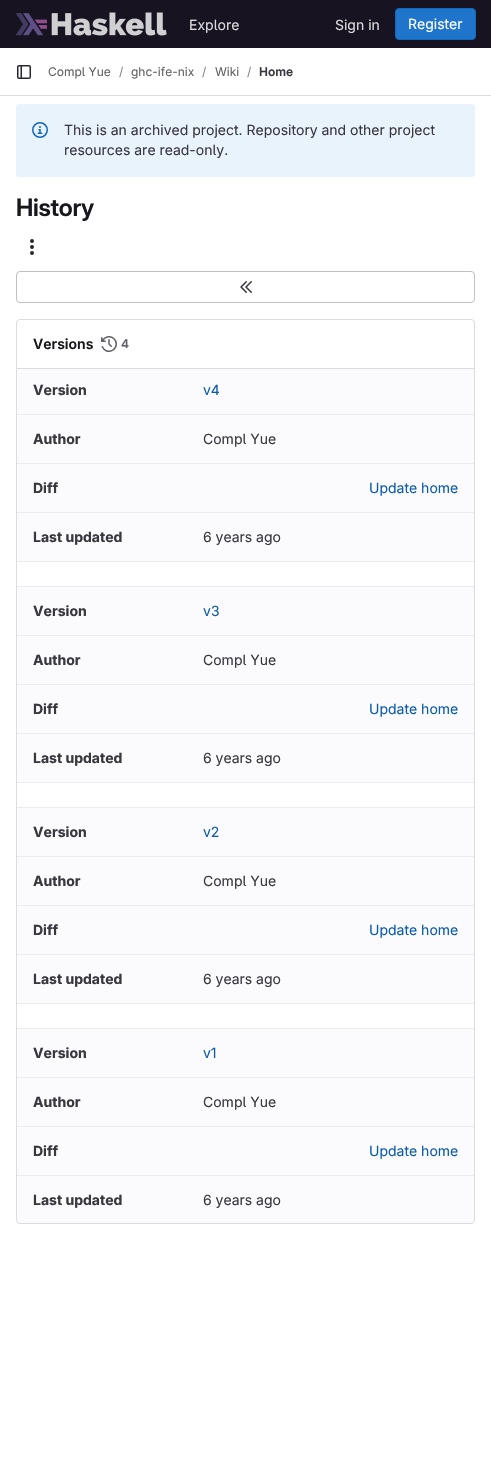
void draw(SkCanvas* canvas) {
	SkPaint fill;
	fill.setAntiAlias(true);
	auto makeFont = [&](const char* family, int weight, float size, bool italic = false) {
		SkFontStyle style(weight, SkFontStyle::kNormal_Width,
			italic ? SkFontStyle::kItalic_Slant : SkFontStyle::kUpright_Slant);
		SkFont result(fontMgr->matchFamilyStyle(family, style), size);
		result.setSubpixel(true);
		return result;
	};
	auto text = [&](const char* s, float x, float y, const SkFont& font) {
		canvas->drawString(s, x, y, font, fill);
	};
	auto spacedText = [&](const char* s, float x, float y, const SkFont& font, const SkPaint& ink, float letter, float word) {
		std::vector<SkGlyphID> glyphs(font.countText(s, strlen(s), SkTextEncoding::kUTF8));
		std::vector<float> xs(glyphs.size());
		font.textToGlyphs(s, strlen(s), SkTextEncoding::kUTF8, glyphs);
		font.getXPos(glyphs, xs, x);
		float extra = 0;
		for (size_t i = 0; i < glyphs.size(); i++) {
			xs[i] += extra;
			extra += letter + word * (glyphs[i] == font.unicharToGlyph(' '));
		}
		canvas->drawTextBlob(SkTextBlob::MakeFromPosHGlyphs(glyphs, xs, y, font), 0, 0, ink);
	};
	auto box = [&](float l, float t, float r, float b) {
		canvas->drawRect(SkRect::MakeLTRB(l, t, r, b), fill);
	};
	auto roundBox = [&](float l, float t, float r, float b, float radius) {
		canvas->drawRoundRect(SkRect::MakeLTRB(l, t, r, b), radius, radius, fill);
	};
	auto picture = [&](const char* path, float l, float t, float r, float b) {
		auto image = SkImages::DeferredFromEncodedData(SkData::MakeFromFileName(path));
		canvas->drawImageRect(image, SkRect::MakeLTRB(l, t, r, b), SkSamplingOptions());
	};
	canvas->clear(0xFFFFFFFF);
	fill.setColor(0xFF171321);
	box(0, 0, 491, 48);
	picture("image0.png", 15, 12, 167, 36);
	fill.setColor(0xFF1F75CB);
	canvas->drawRoundRect(SkRect::MakeLTRB(395.5f, 8.5f, 475.5f, 39.5f), 3.5f, 3.5f, fill);
	fill.setStyle(SkPaint::kStroke_Style);
	fill.setStrokeWidth(1);
	fill.setColor(0xFF1068BF);
	canvas->drawRoundRect(SkRect::MakeLTRB(395.5f, 8.5f, 475.5f, 39.5f), 3.5f, 3.5f, fill);
	fill.setStyle(SkPaint::kFill_Style);
	fill.setColor(0xFFDCDCDE);
	box(0, 95, 491, 96);
	picture("image1.png", 17, 65, 31, 79);
	fill.setColor(0xFFE9F3FC);
	roundBox(16, 104, 475, 177, 4);
	picture("image2.png", 32, 122, 48, 138);
	picture("image3.png", 30, 239, 34, 255);
	fill.setStyle(SkPaint::kStroke_Style);
	fill.setColor(0xFFBFBFC3);
	canvas->drawRoundRect(SkRect::MakeLTRB(16.5f, 271.5f, 474.5f, 302.5f), 3.5f, 3.5f, fill);
	picture("image4.png", 240, 281, 252, 293);
	fill.setStyle(SkPaint::kFill_Style);
	fill.setColor(0xFFFBFAFD);
	canvas->drawRoundRect(SkRect::MakeLTRB(16.5f, 319.5f, 474.5f, 1223.5f), 3.5f, 3.5f, fill);
	fill.setStyle(SkPaint::kStroke_Style);
	fill.setColor(0xFFDCDCDE);
	canvas->drawRoundRect(SkRect::MakeLTRB(16.5f, 319.5f, 474.5f, 1223.5f), 3.5f, 3.5f, fill);
	fill.setStyle(SkPaint::kFill_Style);
	fill.setColor(0xFFFFFFFF);
	canvas->drawPath(SkPathBuilder().moveTo(21, 320).lineTo(470, 320).cubicTo(472, 320, 474, 322, 474, 324).lineTo(474, 369).lineTo(17, 369).lineTo(17, 324).cubicTo(17, 322, 19, 320, 21, 320).close().detach(), fill);
	fill.setColor(0xFFDCDCDE);
	box(17, 368, 474, 369);
	picture("image5.png", 101, 336, 117, 352);
	fill.setColor(0xFFECECEF);
	box(17, 414, 474, 415);
	box(17, 463, 474, 464);
	box(17, 512, 474, 513);
	box(17, 561, 474, 562);
	fill.setColor(0xFFFFFFFF);
	box(17, 562, 474, 586);
	fill.setColor(0xFFECECEF);
	box(17, 586, 474, 587);
	box(17, 635, 474, 636);
	box(17, 684, 474, 685);
	box(17, 733, 474, 734);
	box(17, 782, 474, 783);
	fill.setColor(0xFFFFFFFF);
	box(17, 783, 474, 807);
	fill.setColor(0xFFECECEF);
	box(17, 807, 474, 808);
	box(17, 856, 474, 857);
	box(17, 905, 474, 906);
	box(17, 954, 474, 955);
	box(17, 1003, 474, 1004);
	fill.setColor(0xFFFFFFFF);
	box(17, 1004, 474, 1028);
	fill.setColor(0xFFECECEF);
	box(17, 1028, 474, 1029);
	box(17, 1077, 474, 1078);
	box(17, 1126, 474, 1127);
	box(17, 1175, 474, 1176);
	auto font1 = makeFont("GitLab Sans", 400, 14);
	fill.setColor(0xFFDCDCDE);
	text("Explore", 189, 30, font1);
	text("Sign in", 335, 30, font1);
	fill.setColor(0xFFFFFFFF);
	text("Register", 408, 29, font1);
	auto font2 = makeFont("GitLab Sans", 400, 12);
	fill.setColor(0xFF626168);
	text("Compl Yue", 48, 76, font2);
	fill.setColor(0xFF89888D);
	text("/", 119, 76, font2);
	fill.setColor(0xFF626168);
	text("ghc-ife-nix", 131, 76, font2);
	fill.setColor(0xFF89888D);
	text("/", 202, 76, font2);
	fill.setColor(0xFF626168);
	text("Wiki", 215, 76, font2);
	fill.setColor(0xFF89888D);
	text("/", 247, 76, font2);
	auto font3 = makeFont("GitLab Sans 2", 600, 12);
	fill.setColor(0xFF3A383F);
	text("Home", 259, 76, font3);
	text("This is an archived project. Repository and other project", 64, 135, font1);
	text("resources are read-only.", 64, 155, font1);
	auto font4 = makeFont("GitLab Sans", 600, 24);
	fill.setColor(0xFF18171D);
	spacedText("History", 16, 216, font4, fill, -0.25f, 0);
	auto font5 = makeFont("GitLab Sans 2", 600, 14);
	text("Versions", 33, 349, font5);
	fill.setColor(0xFF626168);
	text("4", 121, 348, font3);
	auto font6 = makeFont("GitLab Sans", 700, 14);
	fill.setColor(0xFF3A383F);
	text("Version", 33, 395, font6);
	fill.setColor(0xFF0B5CAD);
	text("v4", 203, 395, font1);
	fill.setColor(0xFF3A383F);
	text("Author", 33, 444, font6);
	text("Compl Yue", 203, 444, font1);
	text("Diff", 33, 493, font6);
	fill.setColor(0xFF0B5CAD);
	text("Update home", 369, 493, font1);
	fill.setColor(0xFF3A383F);
	text("Last updated", 33, 542, font6);
	text("6 years ago", 203, 542, font1);
	text("Version", 33, 616, font6);
	fill.setColor(0xFF0B5CAD);
	text("v3", 203, 616, font1);
	fill.setColor(0xFF3A383F);
	text("Author", 33, 665, font6);
	text("Compl Yue", 203, 665, font1);
	text("Diff", 33, 714, font6);
	fill.setColor(0xFF0B5CAD);
	text("Update home", 369, 714, font1);
	fill.setColor(0xFF3A383F);
	text("Last updated", 33, 763, font6);
	text("6 years ago", 203, 763, font1);
	text("Version", 33, 837, font6);
	fill.setColor(0xFF0B5CAD);
	text("v2", 203, 837, font1);
	fill.setColor(0xFF3A383F);
	text("Author", 33, 886, font6);
	text("Compl Yue", 203, 886, font1);
	text("Diff", 33, 935, font6);
	fill.setColor(0xFF0B5CAD);
	text("Update home", 369, 935, font1);
	fill.setColor(0xFF3A383F);
	text("Last updated", 33, 984, font6);
	text("6 years ago", 203, 984, font1);
	text("Version", 33, 1058, font6);
	fill.setColor(0xFF0B5CAD);
	text("v1", 203, 1058, font1);
	fill.setColor(0xFF3A383F);
	text("Author", 33, 1107, font6);
	text("Compl Yue", 203, 1107, font1);
	text("Diff", 33, 1156, font6);
	fill.setColor(0xFF0B5CAD);
	text("Update home", 369, 1156, font1);
	fill.setColor(0xFF3A383F);
	text("Last updated", 33, 1205, font6);
	text("6 years ago", 203, 1205, font1);
}
